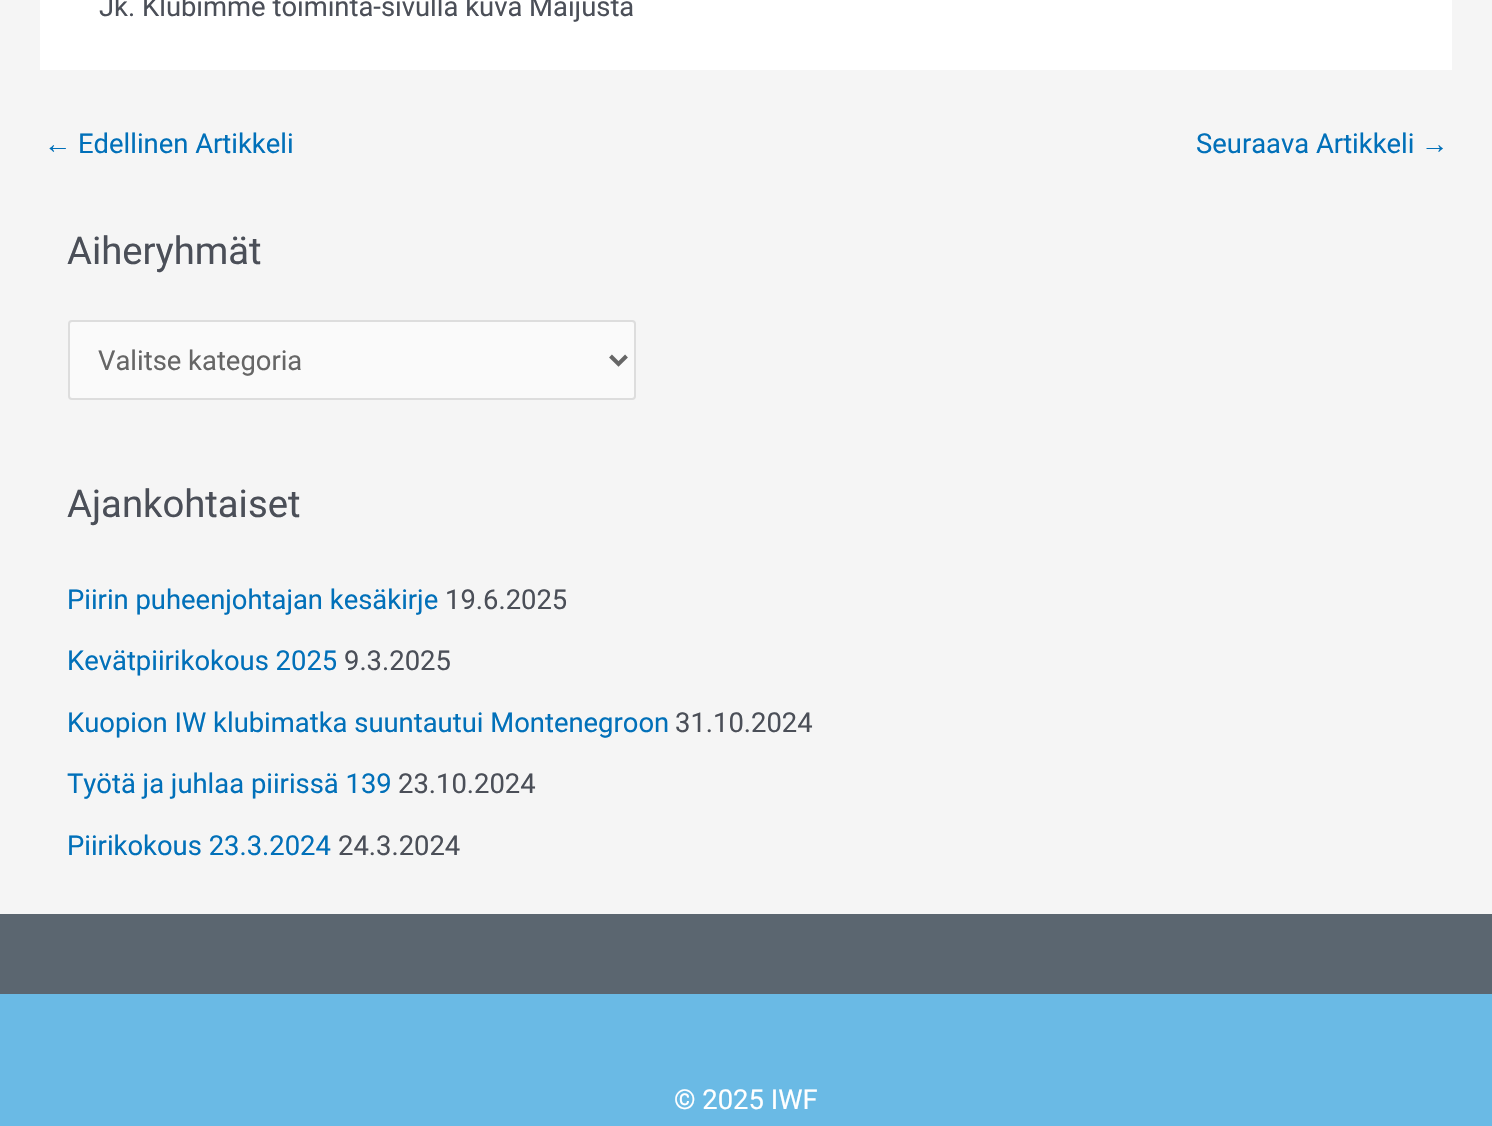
void draw(SkCanvas* canvas) {
	SkPaint fill;
	fill.setAntiAlias(true);
	auto makeFont = [&](const char* family, int weight, float size, bool italic = false) {
		SkFontStyle style(weight, SkFontStyle::kNormal_Width,
			italic ? SkFontStyle::kItalic_Slant : SkFontStyle::kUpright_Slant);
		SkFont result(fontMgr->matchFamilyStyle(family, style), size);
		result.setSubpixel(true);
		return result;
	};
	auto text = [&](const char* s, float x, float y, const SkFont& font) {
		canvas->drawString(s, x, y, font, fill);
	};
	auto box = [&](float l, float t, float r, float b) {
		canvas->drawRect(SkRect::MakeLTRB(l, t, r, b), fill);
	};
	canvas->clear(0xFFF5F5F5);
	fill.setColor(0xFFFFFFFF);
	box(40, 0, 1452, 70);
	fill.setColor(0xFFFAFAFA);
	canvas->drawRoundRect(SkRect::MakeLTRB(69, 321, 635, 399), 3, 3, fill);
	fill.setStyle(SkPaint::kStroke_Style);
	fill.setStrokeWidth(2);
	fill.setColor(0xFFDDDDDD);
	canvas->drawRoundRect(SkRect::MakeLTRB(69, 321, 635, 399), 3, 3, fill);
	fill.setStrokeWidth(4);
	fill.setColor(0xFF666666);
	canvas->drawPath(SkPathBuilder().moveTo(610.5f, 356).lineTo(618.5f, 364).lineTo(626.5f, 356).detach(), fill);
	fill.setStyle(SkPaint::kFill_Style);
	fill.setColor(0xFF6ABAE5);
	box(0, 994, 1492, 1126);
	fill.setColor(0xFF5B6670);
	box(0, 914, 1492, 994);
	auto font1 = makeFont("Roboto", 400, 27.4f);
	fill.setColor(0xFF4B4F58);
	text("Jk. Klubimme toiminta-sivulla kuva Maijusta", 99, 16, font1);
	auto font2 = makeFont("Liberation Sans", 400, 27.4f);
	fill.setColor(0xFF0170B9);
	text("←", 44, 153, font2);
	text("Edellinen Artikkeli", 78, 153, font1);
	text("Seuraava Artikkeli", 1196, 153, font1);
	text("→", 1421, 153, font2);
	auto font3 = makeFont("Roboto", 400, 38.25f);
	fill.setColor(0xFF4B4F58);
	text("Aiheryhmät", 67, 264, font3);
	fill.setColor(0xFF666666);
	text("Valitse kategoria", 98, 370, font1);
	fill.setColor(0xFF4B4F58);
	text("Ajankohtaiset", 67, 517, font3);
	fill.setColor(0xFF0170B9);
	text("Piirin puheenjohtajan kesäkirje", 67, 609, font1);
	fill.setColor(0xFF4B4F58);
	text("19.6.2025", 445, 609, font1);
	fill.setColor(0xFF0170B9);
	text("Kevätpiirikokous 2025", 67, 670, font1);
	fill.setColor(0xFF4B4F58);
	text("9.3.2025", 344, 670, font1);
	fill.setColor(0xFF0170B9);
	text("Kuopion IW klubimatka suuntautui Montenegroon", 67, 732, font1);
	fill.setColor(0xFF4B4F58);
	text("31.10.2024", 675, 732, font1);
	fill.setColor(0xFF0170B9);
	text("Työtä ja juhlaa piirissä 139", 67, 793, font1);
	fill.setColor(0xFF4B4F58);
	text("23.10.2024", 398, 793, font1);
	fill.setColor(0xFF0170B9);
	text("Piirikokous 23.3.2024", 67, 855, font1);
	fill.setColor(0xFF4B4F58);
	text("24.3.2024", 338, 855, font1);
	fill.setColor(0xFFFFFFFF);
	text("© 2025 IWF", 674, 1109, font1);
}
